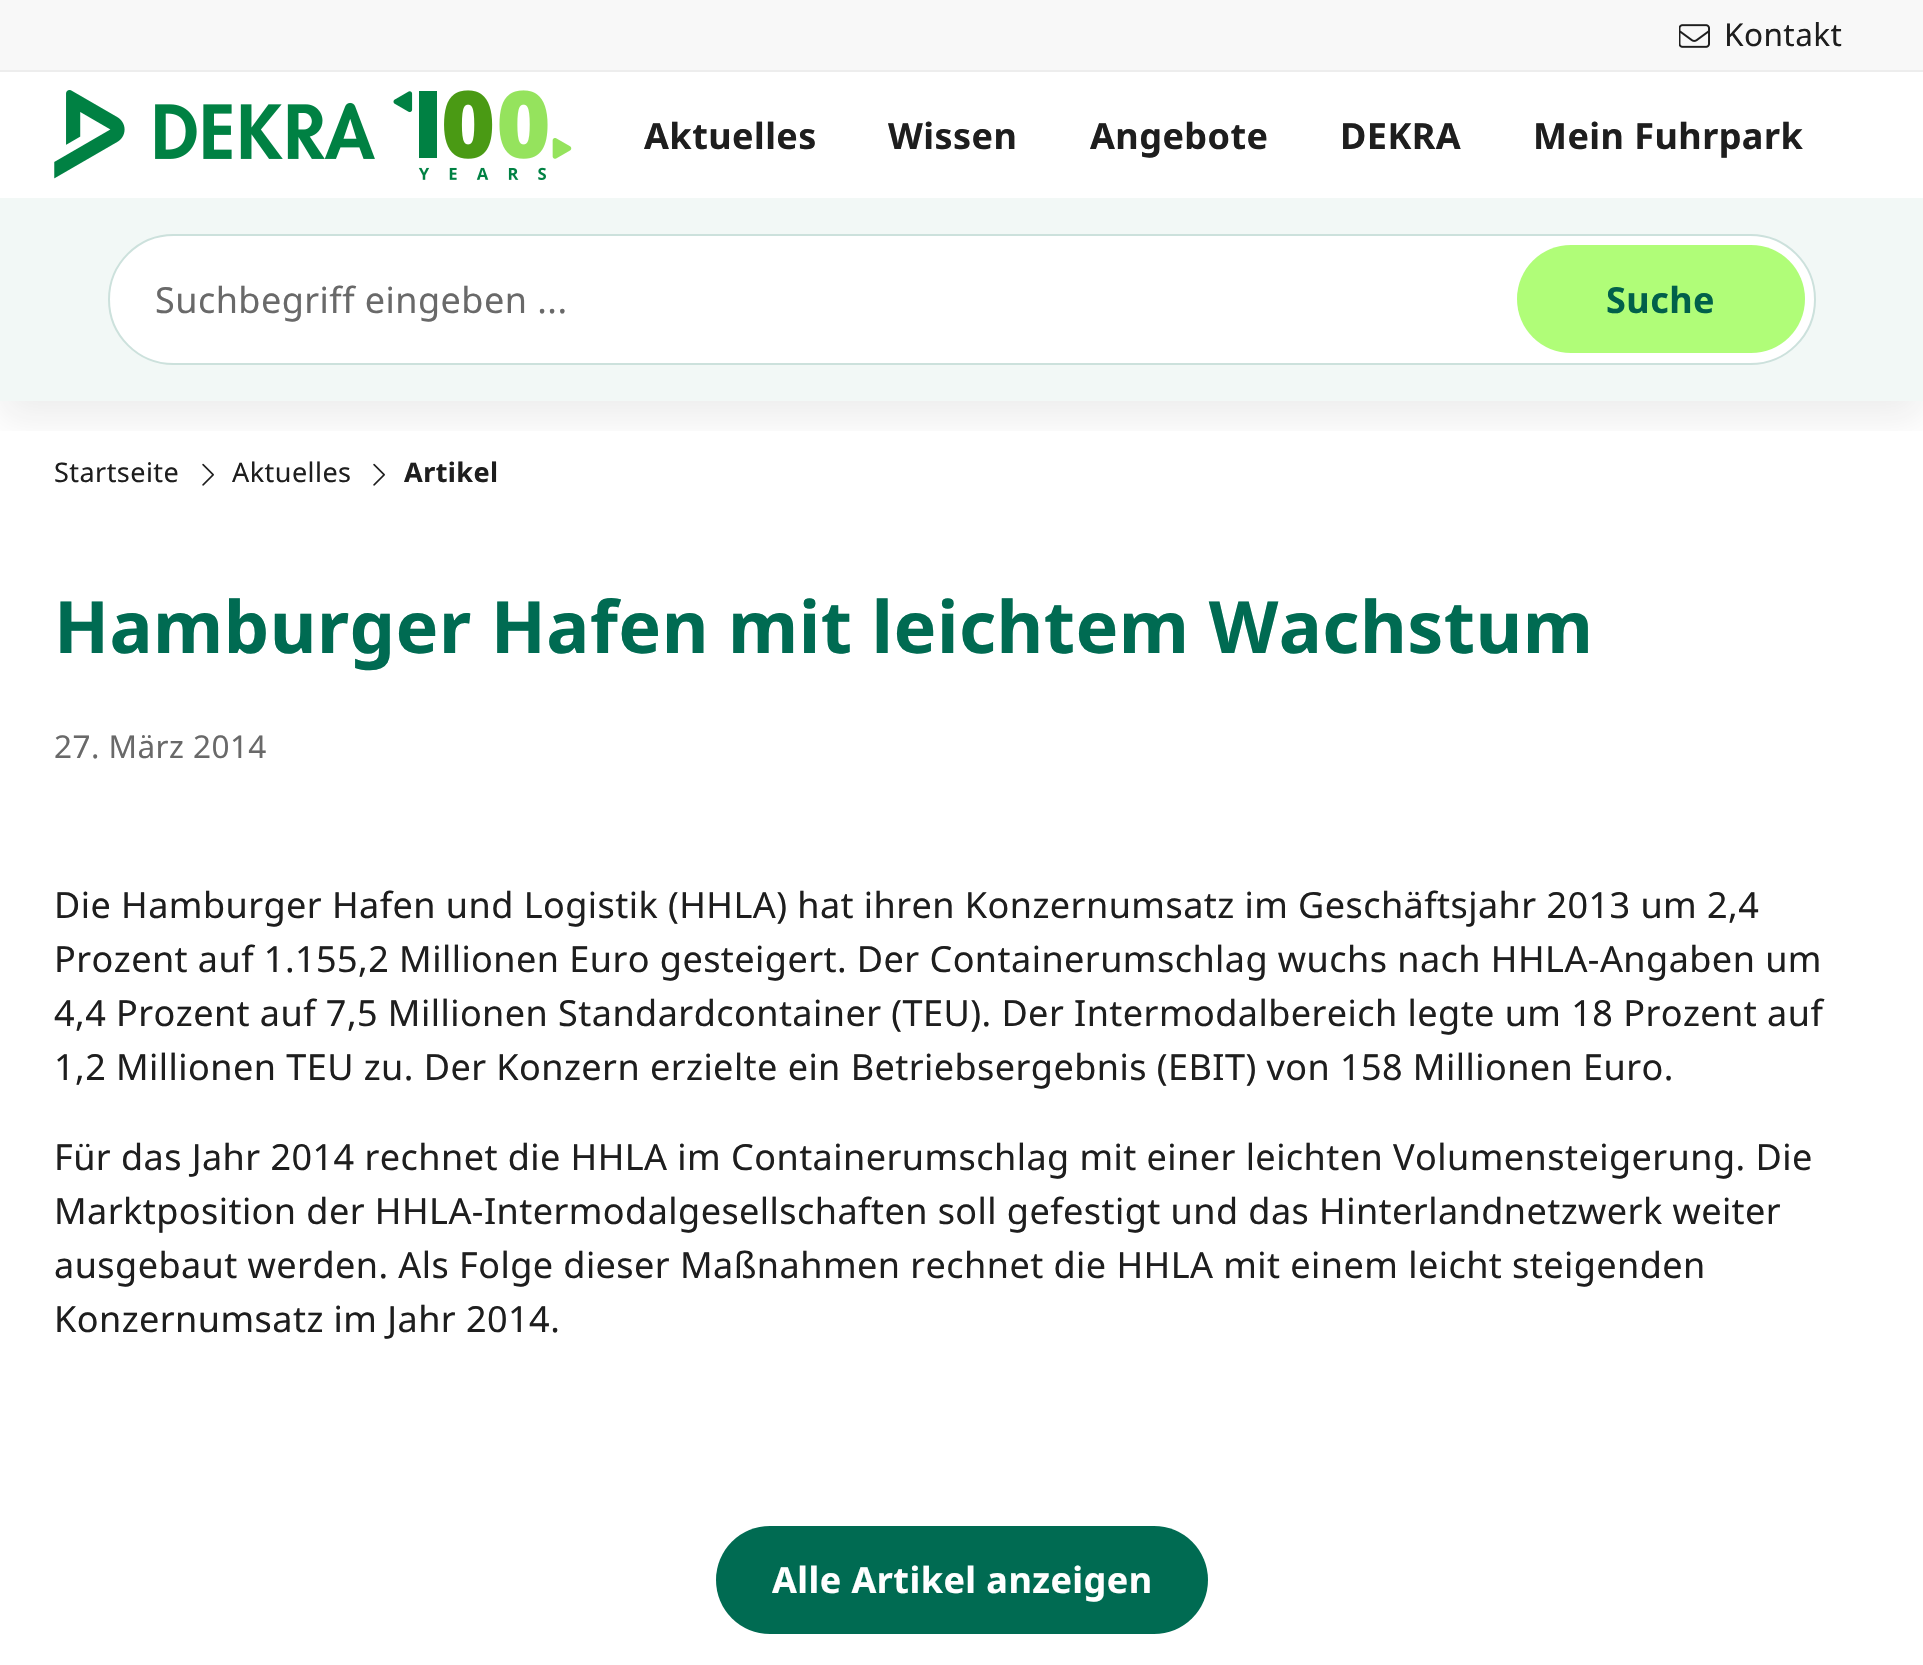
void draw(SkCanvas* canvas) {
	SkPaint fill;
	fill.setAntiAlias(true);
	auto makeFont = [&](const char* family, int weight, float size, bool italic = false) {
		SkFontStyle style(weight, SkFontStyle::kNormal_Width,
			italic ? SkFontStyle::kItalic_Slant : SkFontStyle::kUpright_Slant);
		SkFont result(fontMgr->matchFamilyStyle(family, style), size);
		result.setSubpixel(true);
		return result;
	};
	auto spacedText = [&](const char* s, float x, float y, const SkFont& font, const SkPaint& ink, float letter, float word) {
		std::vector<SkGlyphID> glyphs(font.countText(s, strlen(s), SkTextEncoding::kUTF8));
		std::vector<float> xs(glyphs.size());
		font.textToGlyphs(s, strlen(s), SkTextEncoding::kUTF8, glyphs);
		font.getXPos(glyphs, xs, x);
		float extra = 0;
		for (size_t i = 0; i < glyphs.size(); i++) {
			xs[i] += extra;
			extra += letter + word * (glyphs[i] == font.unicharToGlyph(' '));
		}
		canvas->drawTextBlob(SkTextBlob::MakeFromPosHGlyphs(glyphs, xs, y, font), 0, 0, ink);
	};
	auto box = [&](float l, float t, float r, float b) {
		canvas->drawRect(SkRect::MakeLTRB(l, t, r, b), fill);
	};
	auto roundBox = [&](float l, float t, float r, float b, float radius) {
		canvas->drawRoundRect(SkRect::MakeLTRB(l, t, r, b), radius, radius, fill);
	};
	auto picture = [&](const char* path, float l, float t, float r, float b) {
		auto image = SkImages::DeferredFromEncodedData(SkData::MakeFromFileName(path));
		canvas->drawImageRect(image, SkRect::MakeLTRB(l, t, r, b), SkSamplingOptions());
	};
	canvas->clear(0xFFFFFFFF);
	picture("image2.png", 202, 463, 214, 486);
	picture("image2.png", 373, 463, 385, 486);
	canvas->save();
	canvas->clipRect(SkRect::MakeLTRB(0, 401, 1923, 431));
	fill.setColor(0x141E1E1E);
	fill.setMaskFilter(SkMaskFilter::MakeBlur(kNormal_SkBlurStyle, 18));
	canvas->drawRect(SkRect::MakeLTRB(0, 18, 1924, 419), fill);
	fill.setMaskFilter(nullptr);
	canvas->restore();
	fill.setColor(0xFFF8F8F8);
	box(0, 0, 1923, 70);
	fill.setColor(0xFFEDEDED);
	box(0, 70, 1923, 72);
	picture("image0.png", 1679, 24, 1710, 48);
	picture("image1.png", 54, 90, 572, 180);
	fill.setColor(0xFFF2F8F6);
	box(0, 198, 1923, 401);
	fill.setColor(0xFFFFFFFF);
	canvas->drawRoundRect(SkRect::MakeLTRB(109, 235, 1815, 364), 64.5f, 64.5f, fill);
	fill.setStyle(SkPaint::kStroke_Style);
	fill.setStrokeWidth(2);
	fill.setColor(0xFFCCE1DC);
	canvas->drawRoundRect(SkRect::MakeLTRB(109, 235, 1815, 364), 64.5f, 64.5f, fill);
	fill.setStyle(SkPaint::kFill_Style);
	fill.setColor(0xFFB0FD78);
	roundBox(1517, 245, 1805, 353, 54);
	fill.setColor(0xFF006B52);
	roundBox(716, 1526, 1208, 1634, 54);
	auto font1 = makeFont("Noto Sans", 400, 31.5f);
	fill.setColor(0xFF1E1E1E);
	spacedText("Kontakt", 1724, 46, font1, fill, 0.45f, 0);
	auto font2 = makeFont("Noto Sans", 700, 36);
	spacedText("Aktuelles", 644, 149, font2, fill, 0.45f, 0);
	spacedText("Wissen", 888, 149, font2, fill, 0.45f, 0);
	spacedText("Angebote", 1090, 149, font2, fill, 0.45f, 0);
	spacedText("DEKRA", 1340, 149, font2, fill, 0.45f, 0);
	spacedText("Mein Fuhrpark", 1533, 149, font2, fill, 0.45f, 0);
	auto font3 = makeFont("Noto Sans", 400, 36);
	fill.setColor(0xFF696969);
	spacedText("Suchbegriff eingeben ...", 155, 313, font3, fill, 0.45f, 0);
	fill.setColor(0xFF01604A);
	spacedText("Suche", 1606, 313, font2, fill, 0.45f, 0);
	auto font4 = makeFont("Noto Sans", 400, 27);
	fill.setColor(0xFF1E1E1E);
	spacedText("Startseite", 54, 482, font4, fill, 0.45f, 0);
	spacedText("Aktuelles", 232, 482, font4, fill, 0.45f, 0);
	auto font5 = makeFont("Noto Sans", 700, 27);
	spacedText("Artikel", 404, 482, font5, fill, 0.45f, 0);
	auto font6 = makeFont("Noto Sans", 700, 72);
	fill.setColor(0xFF006B52);
	spacedText("Hamburger Hafen mit leichtem Wachstum", 54, 653, font6, fill, 0.45f, 0);
	fill.setColor(0xFF696969);
	spacedText("27. März 2014", 54, 758, font1, fill, 0.45f, 0);
	fill.setColor(0xFF1E1E1E);
	spacedText("Die Hamburger Hafen und Logistik (HHLA) hat ihren Konzernumsatz im Geschäftsjahr 2013 um 2,4", 54, 918, font3, fill, 0.45f, 0);
	spacedText("Prozent auf 1.155,2 Millionen Euro gesteigert. Der Containerumschlag wuchs nach HHLA-Angaben um", 54, 972, font3, fill, 0.45f, 0);
	spacedText("4,4 Prozent auf 7,5 Millionen Standardcontainer (TEU). Der Intermodalbereich legte um 18 Prozent auf", 54, 1026, font3, fill, 0.45f, 0);
	spacedText("1,2 Millionen TEU zu. Der Konzern erzielte ein Betriebsergebnis (EBIT) von 158 Millionen Euro.", 54, 1080, font3, fill, 0.45f, 0);
	spacedText("Für das Jahr 2014 rechnet die HHLA im Containerumschlag mit einer leichten Volumensteigerung. Die", 54, 1170, font3, fill, 0.45f, 0);
	spacedText("Marktposition der HHLA-Intermodalgesellschaften soll gefestigt und das Hinterlandnetzwerk weiter", 54, 1224, font3, fill, 0.45f, 0);
	spacedText("ausgebaut werden. Als Folge dieser Maßnahmen rechnet die HHLA mit einem leicht steigenden", 54, 1278, font3, fill, 0.45f, 0);
	spacedText("Konzernumsatz im Jahr 2014.", 54, 1332, font3, fill, 0.45f, 0);
	fill.setColor(0xFFFFFFFF);
	spacedText("Alle Artikel anzeigen", 772, 1593, font2, fill, 0.45f, 0);
}
